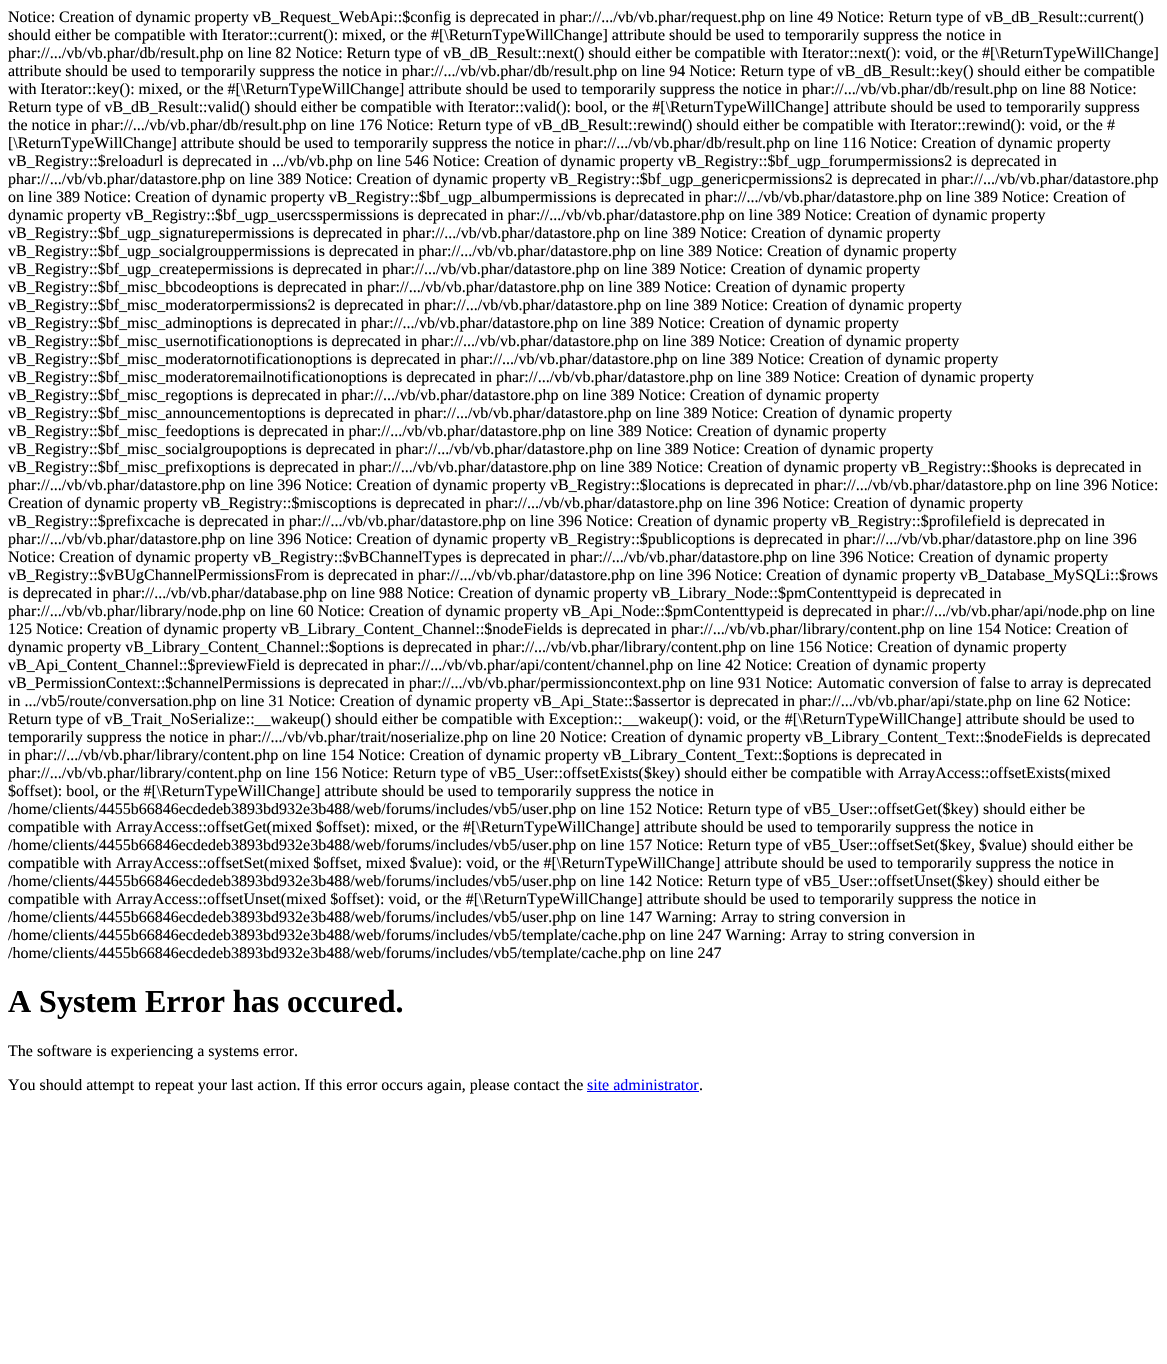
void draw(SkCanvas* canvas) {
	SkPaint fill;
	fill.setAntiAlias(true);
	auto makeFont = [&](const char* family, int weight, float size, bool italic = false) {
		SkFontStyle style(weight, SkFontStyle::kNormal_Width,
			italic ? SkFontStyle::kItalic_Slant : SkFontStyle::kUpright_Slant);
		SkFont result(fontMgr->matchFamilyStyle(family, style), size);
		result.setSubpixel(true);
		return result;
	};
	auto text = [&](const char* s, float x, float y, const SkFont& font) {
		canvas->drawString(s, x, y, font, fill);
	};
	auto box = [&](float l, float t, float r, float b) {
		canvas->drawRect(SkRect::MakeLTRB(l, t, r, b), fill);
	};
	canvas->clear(0xFFFFFFFF);
	fill.setColor(0xFF0000EE);
	box(587, 1091, 699, 1092);
	auto font1 = makeFont("Liberation Serif", 400, 16);
	fill.setColor(0xFF000000);
	text("Notice: Creation of dynamic property vB_Request_WebApi::$config is deprecated in phar://.../vb/vb.phar/request.php on line 49 Notice: Return type of vB_dB_Result::current()", 8, 22, font1);
	text("should either be compatible with Iterator::current(): mixed, or the #[\\ReturnTypeWillChange] attribute should be used to temporarily suppress the notice in", 8, 40, font1);
	text("phar://.../vb/vb.phar/db/result.php on line 82 Notice: Return type of vB_dB_Result::next() should either be compatible with Iterator::next(): void, or the #[\\ReturnTypeWillChange]", 8, 58, font1);
	text("attribute should be used to temporarily suppress the notice in phar://.../vb/vb.phar/db/result.php on line 94 Notice: Return type of vB_dB_Result::key() should either be compatible", 8, 76, font1);
	text("with Iterator::key(): mixed, or the #[\\ReturnTypeWillChange] attribute should be used to temporarily suppress the notice in phar://.../vb/vb.phar/db/result.php on line 88 Notice:", 8, 94, font1);
	text("Return type of vB_dB_Result::valid() should either be compatible with Iterator::valid(): bool, or the #[\\ReturnTypeWillChange] attribute should be used to temporarily suppress", 8, 112, font1);
	text("the notice in phar://.../vb/vb.phar/db/result.php on line 176 Notice: Return type of vB_dB_Result::rewind() should either be compatible with Iterator::rewind(): void, or the #", 8, 130, font1);
	text("[\\ReturnTypeWillChange] attribute should be used to temporarily suppress the notice in phar://.../vb/vb.phar/db/result.php on line 116 Notice: Creation of dynamic property", 8, 148, font1);
	text("vB_Registry::$reloadurl is deprecated in .../vb/vb.php on line 546 Notice: Creation of dynamic property vB_Registry::$bf_ugp_forumpermissions2 is deprecated in", 8, 166, font1);
	text("phar://.../vb/vb.phar/datastore.php on line 389 Notice: Creation of dynamic property vB_Registry::$bf_ugp_genericpermissions2 is deprecated in phar://.../vb/vb.phar/datastore.php", 8, 184, font1);
	text("on line 389 Notice: Creation of dynamic property vB_Registry::$bf_ugp_albumpermissions is deprecated in phar://.../vb/vb.phar/datastore.php on line 389 Notice: Creation of", 8, 202, font1);
	text("dynamic property vB_Registry::$bf_ugp_usercsspermissions is deprecated in phar://.../vb/vb.phar/datastore.php on line 389 Notice: Creation of dynamic property", 8, 220, font1);
	text("vB_Registry::$bf_ugp_signaturepermissions is deprecated in phar://.../vb/vb.phar/datastore.php on line 389 Notice: Creation of dynamic property", 8, 238, font1);
	text("vB_Registry::$bf_ugp_socialgrouppermissions is deprecated in phar://.../vb/vb.phar/datastore.php on line 389 Notice: Creation of dynamic property", 8, 256, font1);
	text("vB_Registry::$bf_ugp_createpermissions is deprecated in phar://.../vb/vb.phar/datastore.php on line 389 Notice: Creation of dynamic property", 8, 274, font1);
	text("vB_Registry::$bf_misc_bbcodeoptions is deprecated in phar://.../vb/vb.phar/datastore.php on line 389 Notice: Creation of dynamic property", 8, 292, font1);
	text("vB_Registry::$bf_misc_moderatorpermissions2 is deprecated in phar://.../vb/vb.phar/datastore.php on line 389 Notice: Creation of dynamic property", 8, 310, font1);
	text("vB_Registry::$bf_misc_adminoptions is deprecated in phar://.../vb/vb.phar/datastore.php on line 389 Notice: Creation of dynamic property", 8, 328, font1);
	text("vB_Registry::$bf_misc_usernotificationoptions is deprecated in phar://.../vb/vb.phar/datastore.php on line 389 Notice: Creation of dynamic property", 8, 346, font1);
	text("vB_Registry::$bf_misc_moderatornotificationoptions is deprecated in phar://.../vb/vb.phar/datastore.php on line 389 Notice: Creation of dynamic property", 8, 364, font1);
	text("vB_Registry::$bf_misc_moderatoremailnotificationoptions is deprecated in phar://.../vb/vb.phar/datastore.php on line 389 Notice: Creation of dynamic property", 8, 382, font1);
	text("vB_Registry::$bf_misc_regoptions is deprecated in phar://.../vb/vb.phar/datastore.php on line 389 Notice: Creation of dynamic property", 8, 400, font1);
	text("vB_Registry::$bf_misc_announcementoptions is deprecated in phar://.../vb/vb.phar/datastore.php on line 389 Notice: Creation of dynamic property", 8, 418, font1);
	text("vB_Registry::$bf_misc_feedoptions is deprecated in phar://.../vb/vb.phar/datastore.php on line 389 Notice: Creation of dynamic property", 8, 436, font1);
	text("vB_Registry::$bf_misc_socialgroupoptions is deprecated in phar://.../vb/vb.phar/datastore.php on line 389 Notice: Creation of dynamic property", 8, 454, font1);
	text("vB_Registry::$bf_misc_prefixoptions is deprecated in phar://.../vb/vb.phar/datastore.php on line 389 Notice: Creation of dynamic property vB_Registry::$hooks is deprecated in", 8, 472, font1);
	text("phar://.../vb/vb.phar/datastore.php on line 396 Notice: Creation of dynamic property vB_Registry::$locations is deprecated in phar://.../vb/vb.phar/datastore.php on line 396 Notice:", 8, 490, font1);
	text("Creation of dynamic property vB_Registry::$miscoptions is deprecated in phar://.../vb/vb.phar/datastore.php on line 396 Notice: Creation of dynamic property", 8, 508, font1);
	text("vB_Registry::$prefixcache is deprecated in phar://.../vb/vb.phar/datastore.php on line 396 Notice: Creation of dynamic property vB_Registry::$profilefield is deprecated in", 8, 526, font1);
	text("phar://.../vb/vb.phar/datastore.php on line 396 Notice: Creation of dynamic property vB_Registry::$publicoptions is deprecated in phar://.../vb/vb.phar/datastore.php on line 396", 8, 544, font1);
	text("Notice: Creation of dynamic property vB_Registry::$vBChannelTypes is deprecated in phar://.../vb/vb.phar/datastore.php on line 396 Notice: Creation of dynamic property", 8, 562, font1);
	text("vB_Registry::$vBUgChannelPermissionsFrom is deprecated in phar://.../vb/vb.phar/datastore.php on line 396 Notice: Creation of dynamic property vB_Database_MySQLi::$rows", 8, 580, font1);
	text("is deprecated in phar://.../vb/vb.phar/database.php on line 988 Notice: Creation of dynamic property vB_Library_Node::$pmContenttypeid is deprecated in", 8, 598, font1);
	text("phar://.../vb/vb.phar/library/node.php on line 60 Notice: Creation of dynamic property vB_Api_Node::$pmContenttypeid is deprecated in phar://.../vb/vb.phar/api/node.php on line", 8, 616, font1);
	text("125 Notice: Creation of dynamic property vB_Library_Content_Channel::$nodeFields is deprecated in phar://.../vb/vb.phar/library/content.php on line 154 Notice: Creation of", 8, 634, font1);
	text("dynamic property vB_Library_Content_Channel::$options is deprecated in phar://.../vb/vb.phar/library/content.php on line 156 Notice: Creation of dynamic property", 8, 652, font1);
	text("vB_Api_Content_Channel::$previewField is deprecated in phar://.../vb/vb.phar/api/content/channel.php on line 42 Notice: Creation of dynamic property", 8, 670, font1);
	text("vB_PermissionContext::$channelPermissions is deprecated in phar://.../vb/vb.phar/permissioncontext.php on line 931 Notice: Automatic conversion of false to array is deprecated", 8, 688, font1);
	text("in .../vb5/route/conversation.php on line 31 Notice: Creation of dynamic property vB_Api_State::$assertor is deprecated in phar://.../vb/vb.phar/api/state.php on line 62 Notice:", 8, 706, font1);
	text("Return type of vB_Trait_NoSerialize::__wakeup() should either be compatible with Exception::__wakeup(): void, or the #[\\ReturnTypeWillChange] attribute should be used to", 8, 724, font1);
	text("temporarily suppress the notice in phar://.../vb/vb.phar/trait/noserialize.php on line 20 Notice: Creation of dynamic property vB_Library_Content_Text::$nodeFields is deprecated", 8, 742, font1);
	text("in phar://.../vb/vb.phar/library/content.php on line 154 Notice: Creation of dynamic property vB_Library_Content_Text::$options is deprecated in", 8, 760, font1);
	text("phar://.../vb/vb.phar/library/content.php on line 156 Notice: Return type of vB5_User::offsetExists($key) should either be compatible with ArrayAccess::offsetExists(mixed", 8, 778, font1);
	text("$offset): bool, or the #[\\ReturnTypeWillChange] attribute should be used to temporarily suppress the notice in", 8, 796, font1);
	text("/home/clients/4455b66846ecdedeb3893bd932e3b488/web/forums/includes/vb5/user.php on line 152 Notice: Return type of vB5_User::offsetGet($key) should either be", 8, 814, font1);
	text("compatible with ArrayAccess::offsetGet(mixed $offset): mixed, or the #[\\ReturnTypeWillChange] attribute should be used to temporarily suppress the notice in", 8, 832, font1);
	text("/home/clients/4455b66846ecdedeb3893bd932e3b488/web/forums/includes/vb5/user.php on line 157 Notice: Return type of vB5_User::offsetSet($key, $value) should either be", 8, 850, font1);
	text("compatible with ArrayAccess::offsetSet(mixed $offset, mixed $value): void, or the #[\\ReturnTypeWillChange] attribute should be used to temporarily suppress the notice in", 8, 868, font1);
	text("/home/clients/4455b66846ecdedeb3893bd932e3b488/web/forums/includes/vb5/user.php on line 142 Notice: Return type of vB5_User::offsetUnset($key) should either be", 8, 886, font1);
	text("compatible with ArrayAccess::offsetUnset(mixed $offset): void, or the #[\\ReturnTypeWillChange] attribute should be used to temporarily suppress the notice in", 8, 904, font1);
	text("/home/clients/4455b66846ecdedeb3893bd932e3b488/web/forums/includes/vb5/user.php on line 147 Warning: Array to string conversion in", 8, 922, font1);
	text("/home/clients/4455b66846ecdedeb3893bd932e3b488/web/forums/includes/vb5/template/cache.php on line 247 Warning: Array to string conversion in", 8, 940, font1);
	text("/home/clients/4455b66846ecdedeb3893bd932e3b488/web/forums/includes/vb5/template/cache.php on line 247", 8, 958, font1);
	auto font2 = makeFont("Liberation Serif", 700, 32);
	text("A System Error has occured.", 8, 1012, font2);
	text("The software is experiencing a systems error.", 8, 1056, font1);
	text("You should attempt to repeat your last action. If this error occurs again, please contact the", 8, 1090, font1);
	fill.setColor(0xFF0000EE);
	text("site administrator", 587, 1090, font1);
	fill.setColor(0xFF000000);
	text(".", 699, 1090, font1);
}
